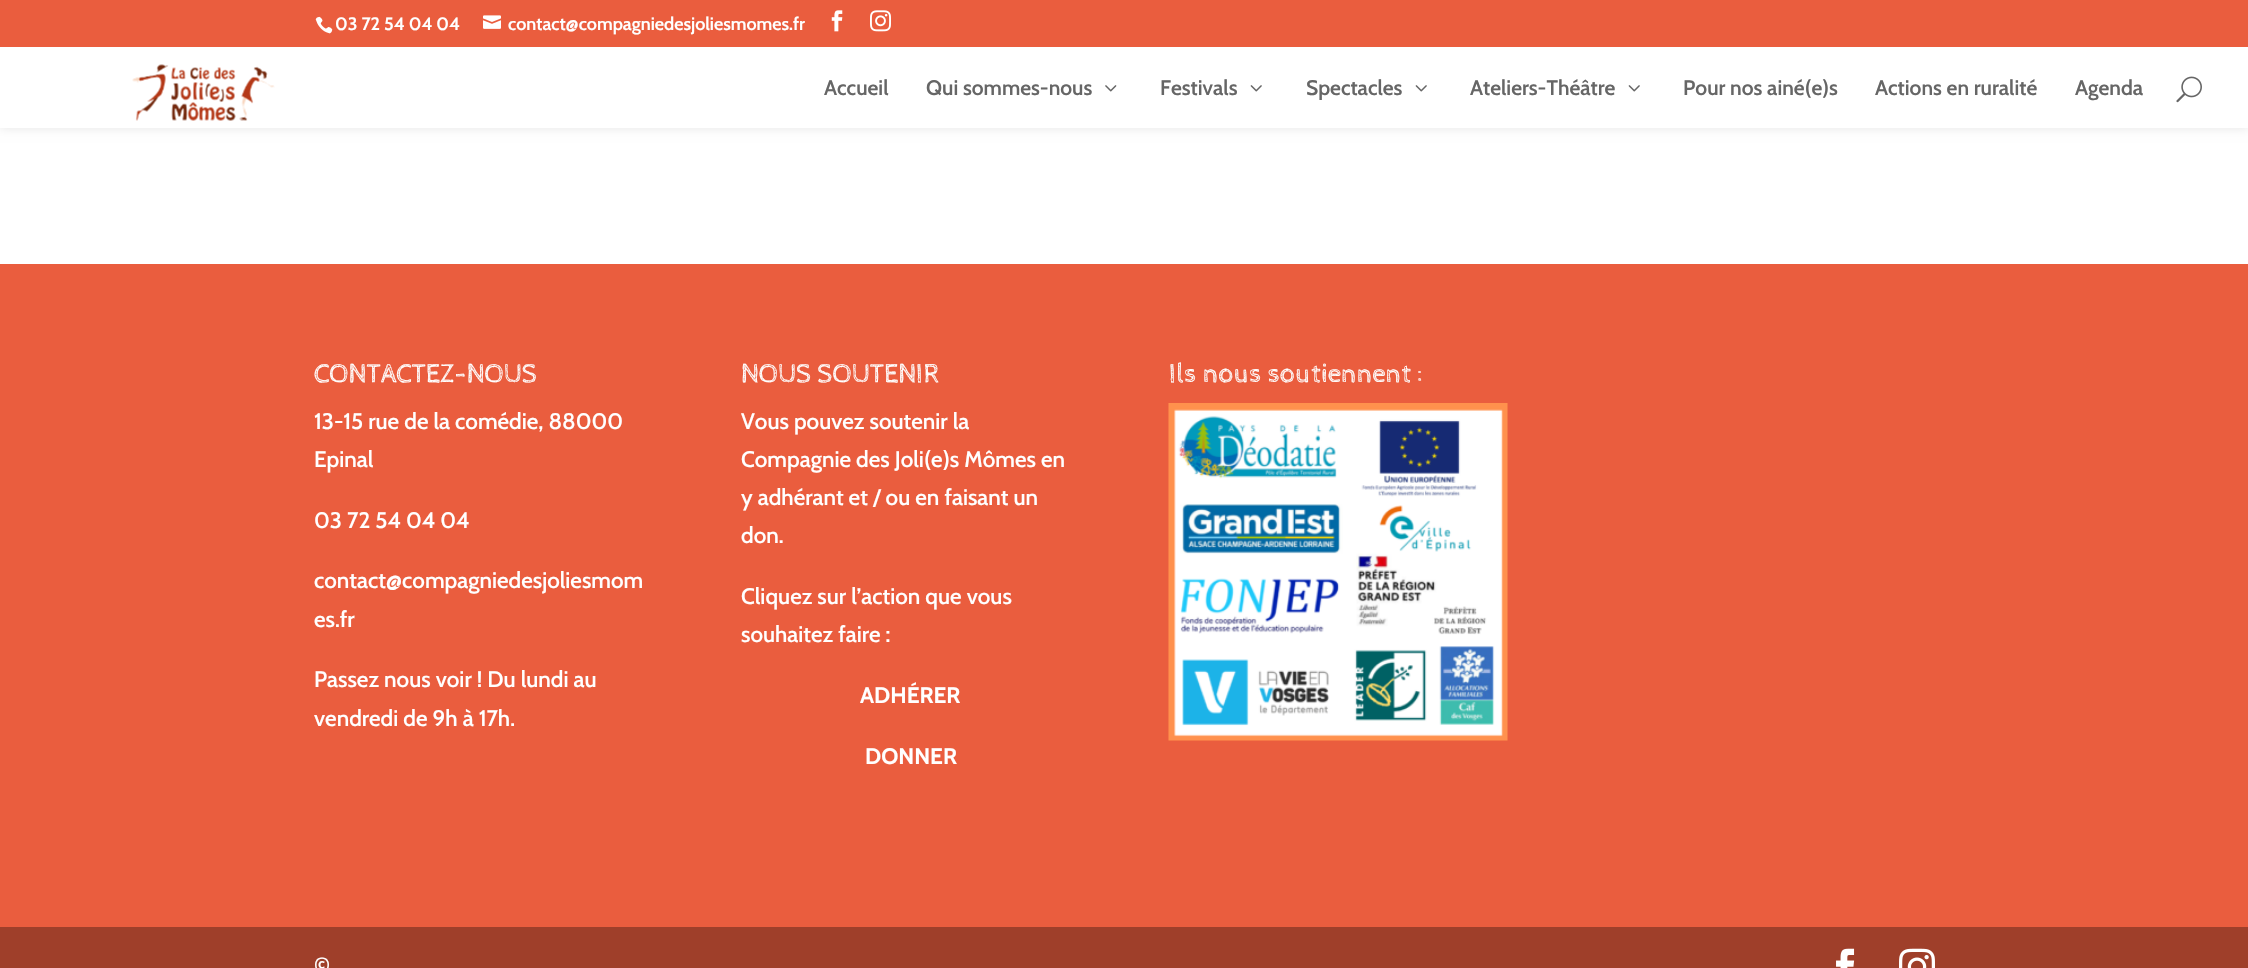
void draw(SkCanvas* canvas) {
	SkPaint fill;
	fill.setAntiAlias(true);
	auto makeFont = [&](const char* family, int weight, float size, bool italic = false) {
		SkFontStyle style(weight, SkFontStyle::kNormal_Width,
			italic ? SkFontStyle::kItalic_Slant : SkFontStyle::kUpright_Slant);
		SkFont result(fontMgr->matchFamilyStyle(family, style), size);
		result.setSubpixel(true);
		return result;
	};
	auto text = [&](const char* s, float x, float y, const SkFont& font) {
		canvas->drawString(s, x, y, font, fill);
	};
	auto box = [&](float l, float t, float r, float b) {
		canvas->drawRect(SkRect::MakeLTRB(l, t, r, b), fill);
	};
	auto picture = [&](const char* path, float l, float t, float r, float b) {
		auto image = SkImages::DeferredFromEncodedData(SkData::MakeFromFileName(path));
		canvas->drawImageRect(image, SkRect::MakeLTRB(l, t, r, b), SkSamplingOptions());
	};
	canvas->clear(0xFFFFFFFF);
	fill.setColor(0x1A000000);
	fill.setMaskFilter(SkMaskFilter::MakeBlur(kNormal_SkBlurStyle, 5));
	canvas->drawRect(SkRect::MakeLTRB(0, 47, 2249, 128), fill);
	fill.setMaskFilter(nullptr);
	fill.setColor(0xFFEA5D3E);
	box(0, 0, 2248, 47);
	picture("image0.png", 315, 16, 333, 34);
	picture("image1.png", 483, 15, 501, 29);
	picture("image2.png", 831, 10, 843, 32);
	picture("image3.png", 870, 10, 891, 32);
	fill.setColor(0xFFFFFFFF);
	box(0, 47, 2248, 128);
	picture("image4.png", 132, 64, 275, 121);
	picture("image5.png", 1105, 85, 1117, 92);
	picture("image6.png", 1250, 85, 1262, 92);
	picture("image6.png", 1415, 85, 1427, 92);
	picture("image6.png", 1628, 85, 1640, 92);
	picture("image7.png", 2176, 76, 2202, 103);
	fill.setColor(0xFFEA5D3E);
	box(0, 264, 2248, 927);
	picture("image8.png", 1168, 403, 1508, 741);
	fill.setColor(0xFF9F3F2A);
	box(0, 927, 2248, 968);
	picture("image9.png", 1836, 948, 1855, 968);
	picture("image10.png", 1899, 948, 1935, 968);
	auto font1 = makeFont("Cabin", 600, 18);
	fill.setColor(0xFFFFFFFF);
	text("03 72 54 04 04", 335, 30, font1);
	text("contact@compagniedesjoliesmomes.fr", 508, 30, font1);
	auto font2 = makeFont("Cabin", 600, 21);
	fill.setColor(0xFF666666);
	text("Accueil", 824, 95, font2);
	text("Qui sommes-nous", 926, 95, font2);
	text("Festivals", 1160, 95, font2);
	text("Spectacles", 1306, 95, font2);
	text("Ateliers-Théâtre", 1470, 95, font2);
	text("Pour nos ainé(e)s", 1683, 95, font2);
	text("Actions en ruralité", 1875, 95, font2);
	text("Agenda", 2075, 95, font2);
	auto font3 = makeFont("Cabin Sketch", 400, 27);
	fill.setColor(0xFFFFFFFF);
	text("CONTACTEZ-NOUS", 314, 382, font3);
	auto font4 = makeFont("Cabin", 500, 22.5f);
	text("13-15 rue de la comédie, 88000", 314, 429, font4);
	text("Epinal", 314, 467, font4);
	text("03 72 54 04 04", 314, 528, font4);
	text("contact@compagniedesjoliesmom", 314, 588, font4);
	text("es.fr", 314, 627, font4);
	text("Passez nous voir ! Du lundi au", 314, 687, font4);
	text("vendredi de 9h à 17h.", 314, 726, font4);
	text("NOUS SOUTENIR", 741, 382, font3);
	text("Vous pouvez soutenir la", 741, 429, font4);
	text("Compagnie des Joli(e)s Mômes en", 741, 467, font4);
	text("y adhérant et / ou en faisant un", 741, 505, font4);
	text("don.", 741, 543, font4);
	text("Cliquez sur l’action que vous", 741, 604, font4);
	text("souhaitez faire :", 741, 642, font4);
	auto font5 = makeFont("Cabin", 700, 22.5f);
	text("ADHÉRER", 860, 703, font5);
	text("DONNER", 865, 764, font5);
	text("Ils nous soutiennent :", 1169, 382, font3);
	text("©", 314, 973, font4);
}
